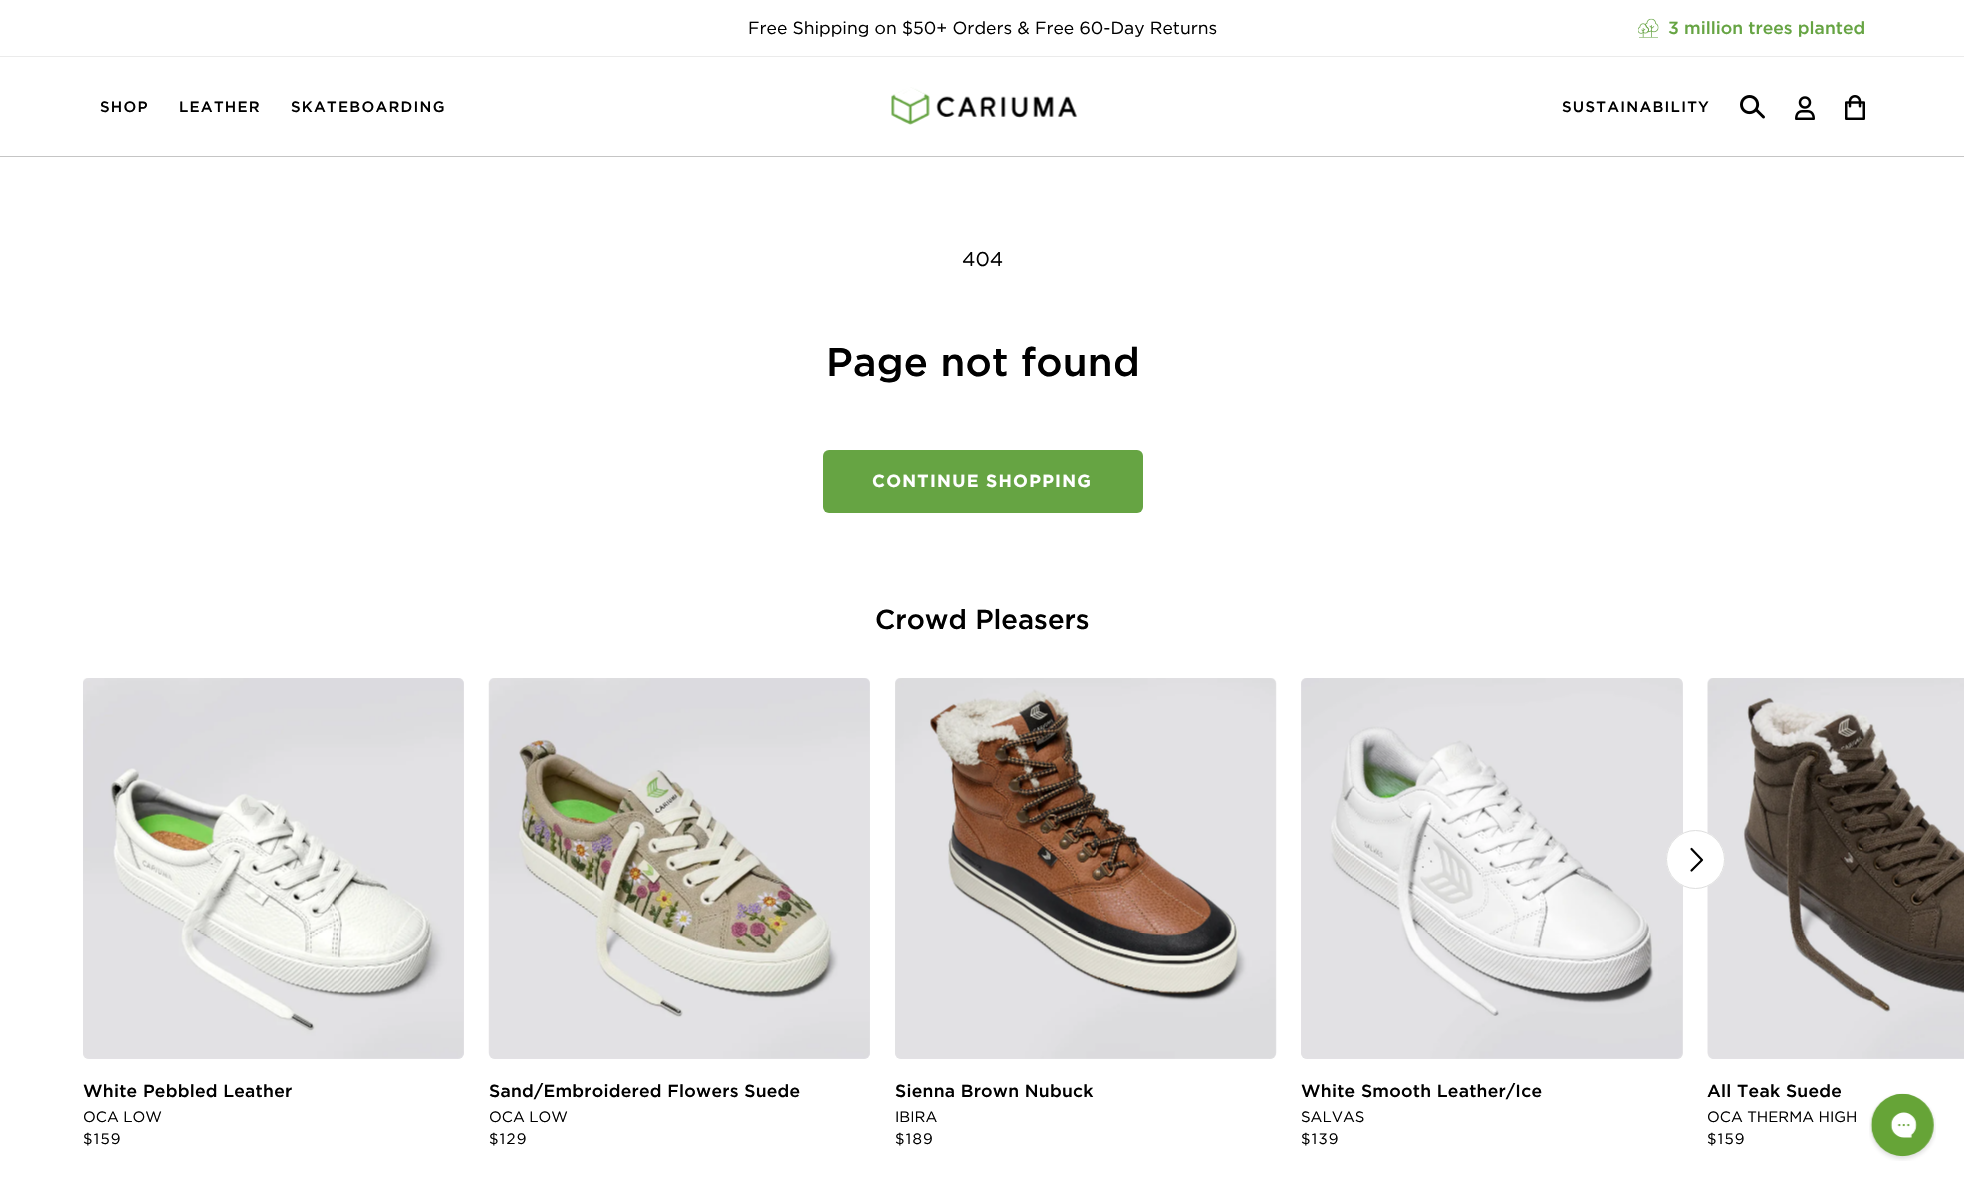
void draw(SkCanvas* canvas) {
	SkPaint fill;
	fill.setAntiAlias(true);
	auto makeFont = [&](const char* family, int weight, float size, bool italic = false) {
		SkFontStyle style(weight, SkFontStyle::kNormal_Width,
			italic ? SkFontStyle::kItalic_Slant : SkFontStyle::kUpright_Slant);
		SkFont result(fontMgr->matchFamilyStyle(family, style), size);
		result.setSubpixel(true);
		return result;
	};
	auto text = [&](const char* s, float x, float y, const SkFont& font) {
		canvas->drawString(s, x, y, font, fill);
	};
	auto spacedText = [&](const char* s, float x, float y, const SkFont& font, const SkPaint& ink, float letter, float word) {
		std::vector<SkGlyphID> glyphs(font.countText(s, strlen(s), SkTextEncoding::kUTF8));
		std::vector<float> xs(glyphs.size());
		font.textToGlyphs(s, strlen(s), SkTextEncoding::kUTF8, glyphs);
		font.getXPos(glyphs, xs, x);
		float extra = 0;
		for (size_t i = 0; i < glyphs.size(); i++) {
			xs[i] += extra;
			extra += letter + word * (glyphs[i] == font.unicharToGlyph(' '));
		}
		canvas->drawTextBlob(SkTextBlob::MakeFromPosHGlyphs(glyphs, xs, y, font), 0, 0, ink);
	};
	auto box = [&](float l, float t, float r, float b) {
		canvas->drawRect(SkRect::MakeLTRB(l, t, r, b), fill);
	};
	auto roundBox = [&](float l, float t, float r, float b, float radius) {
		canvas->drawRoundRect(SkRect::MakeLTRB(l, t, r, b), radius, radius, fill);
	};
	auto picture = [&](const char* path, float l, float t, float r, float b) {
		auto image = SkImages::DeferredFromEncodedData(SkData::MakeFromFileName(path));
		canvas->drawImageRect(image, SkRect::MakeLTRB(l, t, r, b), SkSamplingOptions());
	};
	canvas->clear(0xFFFFFFFF);
	fill.setColor(0xFFEBEBEB);
	box(0, 56, 1964, 57);
	picture("image0.png", 1638, 18, 1659, 38);
	fill.setColor(0xFFC5C5C5);
	box(0, 156, 1964, 157);
	picture("image1.png", 891, 87, 1078, 125);
	picture("image2.png", 1740, 95, 1765, 119);
	picture("image3.png", 1795, 96, 1815, 120);
	picture("image4.png", 1845, 95, 1865, 120);
	fill.setColor(0xFF66A443);
	roundBox(823, 450, 1143, 513, 6);
	fill.setColor(0xFFE2E1E4);
	roundBox(1301, 678, 1683, 1059, 6);
	picture("image8.png", 1301, 678, 1682, 1059);
	canvas->drawPath(SkPathBuilder().moveTo(1714, 678).lineTo(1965, 678).lineTo(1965, 1059).lineTo(1714, 1059).cubicTo(1710.5f, 1059, 1708, 1056.5f, 1708, 1053).lineTo(1708, 684).cubicTo(1708, 680.5f, 1710.5f, 678, 1714, 678).close().detach(), fill);
	picture("image9.png", 1707, 678, 1964, 1059);
	fill.setColor(0xFFFFFFFF);
	canvas->drawCircle(1695.5f, 859.5f, 29.5f, fill);
	fill.setStyle(SkPaint::kStroke_Style);
	fill.setStrokeWidth(2.2f);
	fill.setStrokeCap(SkPaint::kRound_Cap);
	fill.setStrokeJoin(SkPaint::kRound_Join);
	fill.setColor(0xFF000000);
	canvas->drawPath(SkPathBuilder().moveTo(1691.5f, 849).lineTo(1702, 860).lineTo(1691.5f, 870.5f).detach(), fill);
	fill.setStrokeWidth(1);
	fill.setStrokeCap(SkPaint::kButt_Cap);
	fill.setStrokeJoin(SkPaint::kMiter_Join);
	fill.setColor(0xFFDEDEDE);
	canvas->drawCircle(1695.5f, 859.5f, 29, fill);
	fill.setStyle(SkPaint::kFill_Style);
	fill.setColor(0xFFE2E1E4);
	roundBox(83, 678, 464, 1059, 6);
	picture("image5.png", 83, 678, 464, 1059);
	roundBox(489, 678, 870, 1059, 6);
	picture("image6.png", 488, 678, 870, 1059);
	roundBox(895, 678, 1276, 1059, 6);
	picture("image7.png", 895, 678, 1277, 1059);
	picture("image10.png", 1869, 1093, 1936, 1161);
	auto font1 = makeFont("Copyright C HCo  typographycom", 300, 17.5f);
	fill.setColor(0xFF000000);
	text("Free Shipping on $50+ Orders & Free 60-Day Returns", 748, 34, font1);
	auto font2 = makeFont("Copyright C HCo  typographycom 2", 300, 17.5f);
	fill.setColor(0xFF66A443);
	text("3 million trees planted", 1668, 34, font2);
	auto font3 = makeFont("Copyright C HCo  typographycom 2", 300, 15);
	fill.setColor(0xFF000000);
	spacedText("SHOP", 100, 112, font3, fill, 1.25f, 0);
	spacedText("LEATHER", 179, 112, font3, fill, 1.25f, 0);
	spacedText("SKATEBOARDING", 291, 112, font3, fill, 1.25f, 0);
	spacedText("SUSTAINABILITY", 1562, 112, font3, fill, 1.25f, 0);
	auto font4 = makeFont("Copyright C HCo  typographycom", 300, 20);
	text("404", 962, 266, font4);
	auto font5 = makeFont("Copyright C HCo  typographycom 2", 300, 40);
	spacedText("Page not found", 826, 376, font5, fill, 0.25f, 0);
	auto font6 = makeFont("Copyright C HCo  typographycom", 400, 17.5f);
	fill.setColor(0xFFFFFFFF);
	spacedText("CONTINUE SHOPPING", 872, 487, font6, fill, 1.25f, 0);
	auto font7 = makeFont("Copyright C HCo  typographycom 2", 300, 27.5f);
	fill.setColor(0xFF000000);
	text("Crowd Pleasers", 875, 629, font7);
	spacedText("White Pebbled Leather", 83, 1097, font2, fill, 0.25f, 0);
	auto font8 = makeFont("Copyright C HCo  typographycom", 300, 15);
	text("OCA LOW", 83, 1122, font8);
	spacedText("$159", 83, 1144, font8, fill, 1.25f, 0);
	spacedText("Sand/Embroidered Flowers Suede", 489, 1097, font2, fill, 0.25f, 0);
	text("OCA LOW", 489, 1122, font8);
	spacedText("$129", 489, 1144, font8, fill, 1.25f, 0);
	spacedText("Sienna Brown Nubuck", 895, 1097, font2, fill, 0.25f, 0);
	text("IBIRA", 895, 1122, font8);
	spacedText("$189", 895, 1144, font8, fill, 1.25f, 0);
	spacedText("White Smooth Leather/Ice", 1301, 1097, font2, fill, 0.25f, 0);
	text("SALVAS", 1301, 1122, font8);
	spacedText("$139", 1301, 1144, font8, fill, 1.25f, 0);
	spacedText("All Teak Suede", 1707, 1097, font2, fill, 0.25f, 0);
	text("OCA THERMA HIGH", 1707, 1122, font8);
	spacedText("$159", 1707, 1144, font8, fill, 1.25f, 0);
}
